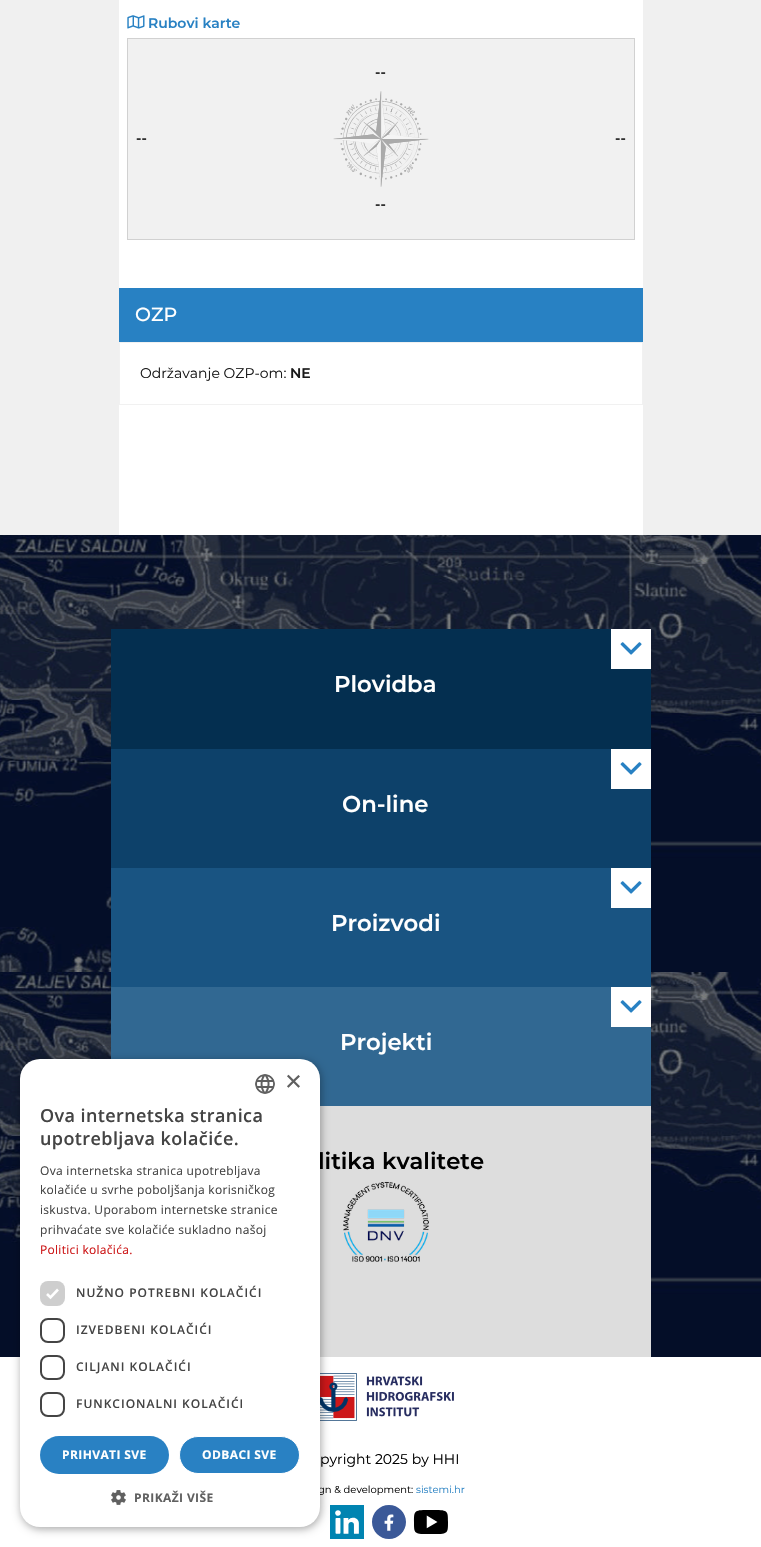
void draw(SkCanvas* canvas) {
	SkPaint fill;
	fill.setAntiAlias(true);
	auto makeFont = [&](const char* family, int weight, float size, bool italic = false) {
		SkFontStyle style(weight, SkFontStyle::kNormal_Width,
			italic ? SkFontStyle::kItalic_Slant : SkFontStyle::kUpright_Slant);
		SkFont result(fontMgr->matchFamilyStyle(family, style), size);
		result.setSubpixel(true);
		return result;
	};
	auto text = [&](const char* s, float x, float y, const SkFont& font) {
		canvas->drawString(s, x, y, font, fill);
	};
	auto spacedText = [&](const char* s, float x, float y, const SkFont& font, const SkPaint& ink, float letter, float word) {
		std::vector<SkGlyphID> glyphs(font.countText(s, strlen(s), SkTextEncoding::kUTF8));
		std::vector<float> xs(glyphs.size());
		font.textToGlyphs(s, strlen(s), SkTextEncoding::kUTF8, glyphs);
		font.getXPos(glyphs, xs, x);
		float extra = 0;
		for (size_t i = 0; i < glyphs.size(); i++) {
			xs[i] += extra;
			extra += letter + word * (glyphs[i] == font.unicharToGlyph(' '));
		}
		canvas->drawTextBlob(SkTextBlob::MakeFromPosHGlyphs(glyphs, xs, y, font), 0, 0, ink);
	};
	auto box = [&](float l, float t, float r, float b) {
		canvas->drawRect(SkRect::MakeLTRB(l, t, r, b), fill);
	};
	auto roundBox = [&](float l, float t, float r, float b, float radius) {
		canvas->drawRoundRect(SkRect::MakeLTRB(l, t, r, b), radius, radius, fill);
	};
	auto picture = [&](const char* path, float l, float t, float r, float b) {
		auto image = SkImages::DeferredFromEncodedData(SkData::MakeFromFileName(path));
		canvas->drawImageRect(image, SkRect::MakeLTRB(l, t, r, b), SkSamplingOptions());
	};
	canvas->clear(0xFFF0F0F0);
	fill.setColor(0xFFFFFFFF);
	box(119, 0, 643, 535);
	picture("image0.png", 127, 15, 145, 29);
	fill.setColor(0xFFF1F1F1);
	canvas->drawRect(SkRect::MakeLTRB(127.5f, 38.5f, 634.5f, 239.5f), fill);
	fill.setStyle(SkPaint::kStroke_Style);
	fill.setStrokeWidth(1);
	fill.setColor(0xFFD1D1D1);
	canvas->drawRect(SkRect::MakeLTRB(127.5f, 38.5f, 634.5f, 239.5f), fill);
	picture("image1.png", 333, 91, 429, 187);
	fill.setStyle(SkPaint::kFill_Style);
	fill.setColor(0xFF2881C3);
	box(119, 288, 643, 342);
	fill.setStyle(SkPaint::kStroke_Style);
	fill.setColor(0xFFF1F1F1);
	canvas->drawRect(SkRect::MakeLTRB(119.5f, 342.5f, 642.5f, 404.5f), fill);
	picture("image2.png", 0, 535, 761, 1357);
	fill.setStyle(SkPaint::kFill_Style);
	fill.setColor(0xFF042F50);
	box(111, 629, 651, 749);
	fill.setColor(0xFFFFFFFF);
	box(611, 629, 651, 669);
	picture("image3.png", 620, 642, 642, 655);
	fill.setColor(0xFF0D416A);
	box(111, 749, 651, 868);
	fill.setColor(0xFFFFFFFF);
	box(611, 749, 651, 789);
	picture("image3.png", 620, 762, 642, 775);
	fill.setColor(0xFF195482);
	box(111, 868, 651, 987);
	fill.setColor(0xFFFFFFFF);
	box(611, 868, 651, 908);
	picture("image3.png", 620, 881, 642, 894);
	fill.setColor(0xFF316892);
	box(111, 987, 651, 1106);
	fill.setColor(0xFFFFFFFF);
	box(611, 987, 651, 1027);
	picture("image3.png", 620, 1000, 642, 1013);
	fill.setColor(0xFFDDDDDD);
	box(320, 1106, 651, 1357);
	picture("image4.png", 343, 1181, 429, 1262);
	fill.setColor(0xFFFFFFFF);
	box(0, 1357, 761, 1547);
	picture("image5.png", 320, 1373, 454, 1421);
	picture("image6.png", 330, 1505, 364, 1539);
	picture("image7.png", 372, 1505, 406, 1539);
	picture("image8.png", 413, 1510, 448, 1534);
	fill.setColor(0x59000000);
	fill.setMaskFilter(SkMaskFilter::MakeBlur(kNormal_SkBlurStyle, 4));
	canvas->drawRoundRect(SkRect::MakeLTRB(21, 1061, 321, 1529), 20, 20, fill);
	fill.setMaskFilter(nullptr);
	auto font1 = makeFont("Montserrat", 600, 14);
	fill.setColor(0xFF2881C3);
	text("Rubovi karte", 148, 28, font1);
	fill.setColor(0xFF191919);
	text("--", 375, 77, font1);
	text("--", 136, 143, font1);
	text("--", 615, 143, font1);
	text("--", 375, 209, font1);
	auto font2 = makeFont("Montserrat", 500, 19);
	fill.setColor(0xFFFFFFFF);
	text("OZP", 135, 321, font2);
	auto font3 = makeFont("Montserrat", 400, 14);
	fill.setColor(0xFF191919);
	text("Održavanje OZP-om:", 140, 378, font3);
	text("NE", 290, 378, font1);
	auto font4 = makeFont("Montserrat", 600, 22.75f);
	fill.setColor(0xFFFFFFFF);
	text("Plovidba", 334, 692, font4);
	text("On-line", 342, 812, font4);
	text("Proizvodi", 331, 931, font4);
	text("Projekti", 340, 1050, font4);
	fill.setColor(0xFF000000);
	text("litika kvalitete", 318, 1169, font4);
	text("pyright 2025 by HHI", 320, 1464, font3);
	auto font5 = makeFont("Montserrat", 400, 10);
	text("gn & development:", 318, 1493, font5);
	fill.setColor(0xFF2881C3);
	text("sistemi.hr", 416, 1493, font5);
	fill.setColor(0xFFFFFFFF);
	roundBox(20, 1059, 320, 1527, 20);
	picture("image9.png", 255, 1074, 275, 1094);
	auto font6 = makeFont("Liberation Sans", 400, 29);
	fill.setColor(0xFF606060);
	text("×", 285, 1091, font6);
	auto font7 = makeFont("Open Sans", 600, 18);
	fill.setColor(0xFF444444);
	spacedText("Ova internetska stranica", 40, 1122, font7, fill, 0.4f, 0);
	spacedText("upotrebljava kolačiće.", 40, 1145, font7, fill, 0.4f, 0);
	auto font8 = makeFont("Open Sans", 400, 12);
	spacedText("Ova internetska stranica upotrebljava", 40, 1175, font8, fill, 0.3f, 0);
	spacedText("kolačiće u svrhe poboljšanja korisničkog", 40, 1194, font8, fill, 0.3f, 0);
	spacedText("iskustva. Uporabom internetske stranice", 40, 1214, font8, fill, 0.3f, 0);
	spacedText("prihvaćate sve kolačiće sukladno našoj", 40, 1234, font8, fill, 0.3f, 0);
	fill.setColor(0xFFCD1718);
	spacedText("Politici kolačića.", 40, 1254, font8, fill, 0.3f, 0);
	fill.setColor(0xFFCECECE);
	roundBox(40, 1281, 65, 1306, 8);
	fill.setStyle(SkPaint::kStroke_Style);
	fill.setStrokeWidth(2.6f);
	fill.setColor(0xFFFFFFFF);
	canvas->drawPath(SkPathBuilder().moveTo(47, 1294).lineTo(50.5f, 1297.5f).lineTo(58, 1289.5f).detach(), fill);
	auto font9 = makeFont("Open Sans", 600, 12);
	fill.setStyle(SkPaint::kFill_Style);
	fill.setColor(0xFF444444);
	spacedText("NUŽNO POTREBNI KOLAČIĆI", 76, 1297, font9, fill, 1, 0);
	fill.setStyle(SkPaint::kStroke_Style);
	fill.setStrokeWidth(2);
	canvas->drawRoundRect(SkRect::MakeLTRB(41, 1319, 64, 1342), 7, 7, fill);
	fill.setStyle(SkPaint::kFill_Style);
	spacedText("IZVEDBENI KOLAČIĆI", 76, 1334, font9, fill, 1, 0);
	fill.setStyle(SkPaint::kStroke_Style);
	canvas->drawRoundRect(SkRect::MakeLTRB(41, 1356, 64, 1379), 7, 7, fill);
	fill.setStyle(SkPaint::kFill_Style);
	spacedText("CILJANI KOLAČIĆI", 76, 1371, font9, fill, 1, 0);
	fill.setStyle(SkPaint::kStroke_Style);
	canvas->drawRoundRect(SkRect::MakeLTRB(41, 1393, 64, 1416), 7, 7, fill);
	fill.setStyle(SkPaint::kFill_Style);
	spacedText("FUNKCIONALNI KOLAČIĆI", 76, 1408, font9, fill, 1, 0);
	fill.setColor(0xFF2981C3);
	roundBox(40, 1436, 169, 1474, 19);
	auto font10 = makeFont("Open Sans", 700, 12);
	fill.setColor(0xFFFFFFFF);
	spacedText("PRIHVATI SVE", 62, 1459, font10, fill, 0.4f, 0);
	fill.setColor(0xFF2981C3);
	canvas->drawRoundRect(SkRect::MakeLTRB(179.5f, 1436.5f, 299.5f, 1473.5f), 18.5f, 18.5f, fill);
	fill.setStyle(SkPaint::kStroke_Style);
	fill.setStrokeWidth(1);
	fill.setColor(0xFFFFFFFF);
	canvas->drawRoundRect(SkRect::MakeLTRB(179.5f, 1436.5f, 299.5f, 1473.5f), 18.5f, 18.5f, fill);
	fill.setStyle(SkPaint::kFill_Style);
	spacedText("ODBACI SVE", 202, 1459, font10, fill, 0.4f, 0);
	picture("image10.png", 111, 1490, 126, 1505);
	fill.setColor(0xFF606060);
	spacedText("PRIKAŽI VIŠE", 134, 1502, font10, fill, 0.4f, 0);
}
